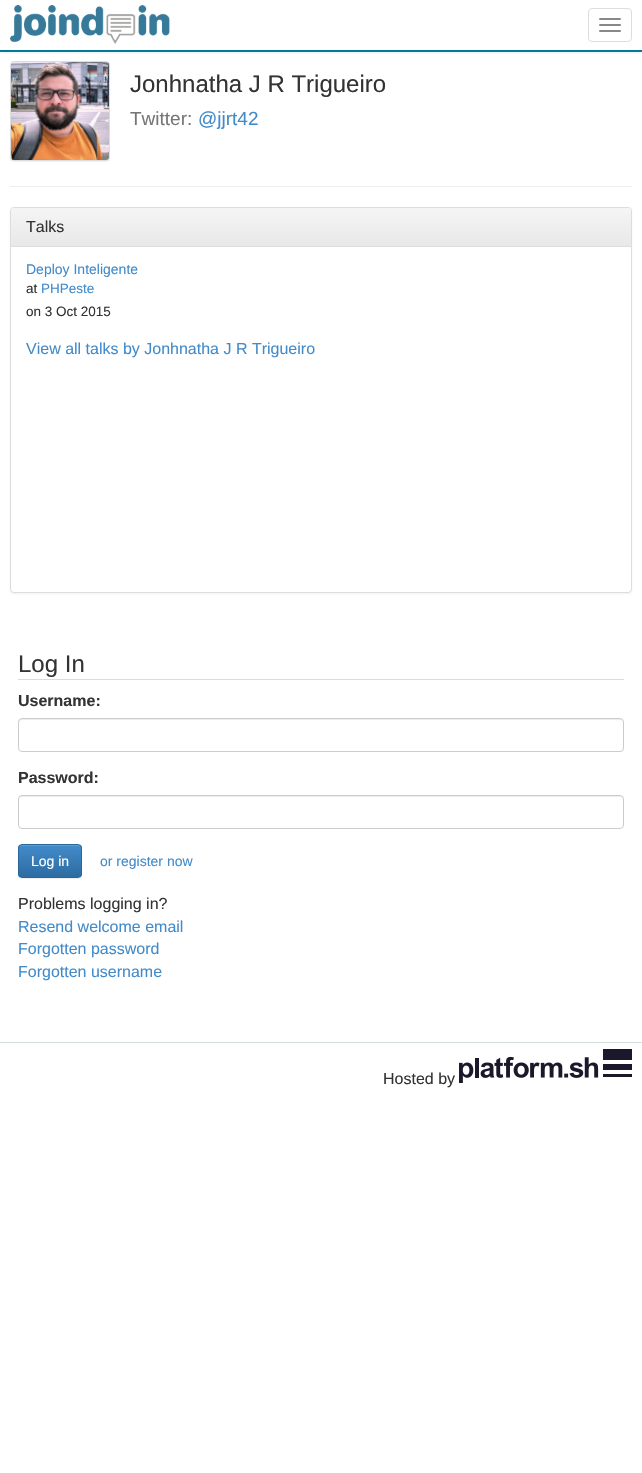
void draw(SkCanvas* canvas) {
	SkPaint fill;
	fill.setAntiAlias(true);
	auto makeFont = [&](const char* family, int weight, float size, bool italic = false) {
		SkFontStyle style(weight, SkFontStyle::kNormal_Width,
			italic ? SkFontStyle::kItalic_Slant : SkFontStyle::kUpright_Slant);
		SkFont result(fontMgr->matchFamilyStyle(family, style), size);
		result.setSubpixel(true);
		return result;
	};
	auto text = [&](const char* s, float x, float y, const SkFont& font) {
		canvas->drawString(s, x, y, font, fill);
	};
	auto box = [&](float l, float t, float r, float b) {
		canvas->drawRect(SkRect::MakeLTRB(l, t, r, b), fill);
	};
	auto roundBox = [&](float l, float t, float r, float b, float radius) {
		canvas->drawRoundRect(SkRect::MakeLTRB(l, t, r, b), radius, radius, fill);
	};
	auto picture = [&](const char* path, float l, float t, float r, float b) {
		auto image = SkImages::DeferredFromEncodedData(SkData::MakeFromFileName(path));
		canvas->drawImageRect(image, SkRect::MakeLTRB(l, t, r, b), SkSamplingOptions());
	};
	canvas->clear(0xFFFFFFFF);
	fill.setColor(0x0D000000);
	fill.setMaskFilter(SkMaskFilter::MakeBlur(kNormal_SkBlurStyle, 0.5f));
	canvas->drawRoundRect(SkRect::MakeLTRB(10, 62, 110, 162), 4, 4, fill);
	fill.setMaskFilter(nullptr);
	fill.setStyle(SkPaint::kStroke_Style);
	fill.setStrokeWidth(1);
	fill.setColor(0xFFDDDDDD);
	canvas->drawRoundRect(SkRect::MakeLTRB(10.5f, 61.5f, 109.5f, 160.5f), 3.5f, 3.5f, fill);
	canvas->save();
	canvas->clipRect(SkRect::MakeLTRB(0, 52, 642, 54));
	fill.setStyle(SkPaint::kFill_Style);
	fill.setColor(0x12000000);
	fill.setMaskFilter(SkMaskFilter::MakeBlur(kNormal_SkBlurStyle, 2.5f));
	canvas->drawRect(SkRect::MakeLTRB(0, 1, 642, 53), fill);
	fill.setMaskFilter(nullptr);
	canvas->restore();
	fill.setColor(0xFF007B97);
	box(0, 50, 642, 52);
	picture("image0.png", 10, 5, 170, 44);
	fill.setStyle(SkPaint::kStroke_Style);
	fill.setColor(0xFFDDDDDD);
	canvas->drawRoundRect(SkRect::MakeLTRB(588.5f, 8.5f, 631.5f, 41.5f), 3.5f, 3.5f, fill);
	fill.setStyle(SkPaint::kFill_Style);
	fill.setColor(0xFF888888);
	roundBox(599, 18, 621, 20, 1);
	roundBox(599, 24, 621, 26, 1);
	roundBox(599, 30, 621, 32, 1);
	fill.setColor(0xFFEEEEEE);
	box(10, 186, 632, 187);
	picture("image1.png", 11, 62, 109, 160);
	fill.setColor(0x0D000000);
	fill.setMaskFilter(SkMaskFilter::MakeBlur(kNormal_SkBlurStyle, 1));
	canvas->drawRoundRect(SkRect::MakeLTRB(10, 208, 632, 594), 4, 4, fill);
	fill.setMaskFilter(nullptr);
	fill.setColor(0xFFFFFFFF);
	canvas->drawRoundRect(SkRect::MakeLTRB(10.5f, 207.5f, 631.5f, 592.5f), 3.5f, 3.5f, fill);
	fill.setStyle(SkPaint::kStroke_Style);
	fill.setColor(0xFFDDDDDD);
	canvas->drawRoundRect(SkRect::MakeLTRB(10.5f, 207.5f, 631.5f, 592.5f), 3.5f, 3.5f, fill);
	fill.setStyle(SkPaint::kFill_Style);
	{
		const SkColor colors[] = {0xFFF5F5F5, 0xFFE8E8E8};
		const float stops[] = {0, 1};
		const SkPoint ends[] = {{321, 208}, {321, 246}};
		fill.setShader(SkGradientShader::MakeLinear(ends, colors, stops, 2, SkTileMode::kClamp));
		fill.setAlpha(255);
	}
	canvas->drawPath(SkPathBuilder().moveTo(14, 208).lineTo(628, 208).cubicTo(629.5f, 208, 631, 209.5f, 631, 211).lineTo(631, 246).lineTo(11, 246).lineTo(11, 211).cubicTo(11, 209.5f, 12.5f, 208, 14, 208).close().detach(), fill);
	fill.setShader(nullptr);
	fill.setColor(0xFFDDDDDD);
	box(11, 246, 631, 247);
	fill.setColor(0xFFD7DCDF);
	box(18, 679, 624, 680);
	fill.setColor(0xFFECECEC);
	canvas->drawPath(SkPathBuilder().moveTo(22, 720).lineTo(620, 720).cubicTo(622, 720, 623, 721, 623, 723).lineTo(623, 722).cubicTo(623, 720, 622, 719, 620, 719).lineTo(22, 719).cubicTo(20, 719, 19, 720, 19, 722).lineTo(19, 723).cubicTo(19, 721, 20, 720, 22, 720).close().detach(), fill);
	fill.setStyle(SkPaint::kStroke_Style);
	fill.setColor(0xFFCCCCCC);
	canvas->drawRoundRect(SkRect::MakeLTRB(18.5f, 718.5f, 623.5f, 751.5f), 3.5f, 3.5f, fill);
	fill.setStyle(SkPaint::kFill_Style);
	fill.setColor(0xFFECECEC);
	canvas->drawPath(SkPathBuilder().moveTo(22, 797).lineTo(620, 797).cubicTo(622, 797, 623, 798, 623, 800).lineTo(623, 799).cubicTo(623, 797, 622, 796, 620, 796).lineTo(22, 796).cubicTo(20, 796, 19, 797, 19, 799).lineTo(19, 800).cubicTo(19, 798, 20, 797, 22, 797).close().detach(), fill);
	fill.setStyle(SkPaint::kStroke_Style);
	fill.setColor(0xFFCCCCCC);
	canvas->drawRoundRect(SkRect::MakeLTRB(18.5f, 795.5f, 623.5f, 828.5f), 3.5f, 3.5f, fill);
	fill.setStyle(SkPaint::kFill_Style);
	fill.setColor(0x12000000);
	fill.setMaskFilter(SkMaskFilter::MakeBlur(kNormal_SkBlurStyle, 0.5f));
	canvas->drawRoundRect(SkRect::MakeLTRB(18, 845, 82, 879), 4, 4, fill);
	fill.setMaskFilter(nullptr);
	canvas->save();
	canvas->clipPath(SkPathBuilder().moveTo(22, 844).lineTo(78, 844).cubicTo(80, 844, 82, 846, 82, 848).lineTo(82, 874).cubicTo(82, 876, 80, 878, 78, 878).lineTo(22, 878).cubicTo(20, 878, 18, 876, 18, 874).lineTo(18, 848).cubicTo(18, 846, 20, 844, 22, 844).close().detach(), true);
	{
		const SkColor colors[] = {0xFF428BCA, 0xFF2D6CA2};
		const float stops[] = {0, 1};
		const SkPoint ends[] = {{50, 845}, {50, 877}};
		fill.setShader(SkGradientShader::MakeLinear(ends, colors, stops, 2, SkTileMode::kClamp));
		fill.setAlpha(255);
	}
	box(18, 845, 82, 877);
	canvas->restore();
	fill.setShader(nullptr);
	fill.setColor(0xFF5E9CD1);
	canvas->drawPath(SkPathBuilder().moveTo(22, 846).lineTo(78, 846).cubicTo(80, 846, 81, 847, 81, 849).cubicTo(81, 843, 73, 845, 69, 845).lineTo(31, 845).cubicTo(27, 845, 19, 843, 19, 849).cubicTo(19, 847, 20, 846, 22, 846).close().detach(), fill);
	fill.setStyle(SkPaint::kStroke_Style);
	fill.setColor(0xFF2B669A);
	canvas->drawRoundRect(SkRect::MakeLTRB(18.5f, 844.5f, 81.5f, 877.5f), 3.5f, 3.5f, fill);
	fill.setStyle(SkPaint::kFill_Style);
	fill.setColor(0xFFD7DCDF);
	box(0, 1042, 642, 1043);
	picture("image2.png", 459, 1049, 632, 1083);
	auto font1 = makeFont("Liberation Sans", 400, 24);
	fill.setColor(0xFF333333);
	text("Jonhnatha J R Trigueiro", 130, 92, font1);
	auto font2 = makeFont("Liberation Sans", 400, 19);
	fill.setColor(0xFF777777);
	text("Twitter:", 130, 125, font2);
	fill.setColor(0xFF428BCA);
	text("@jjrt42", 198, 125, font2);
	auto font3 = makeFont("Liberation Sans", 400, 16);
	fill.setColor(0xFF333333);
	text("Talks", 26, 232, font3);
	auto font4 = makeFont("Liberation Sans", 400, 14);
	fill.setColor(0xFF428BCA);
	text("Deploy Inteligente", 26, 274, font4);
	auto font5 = makeFont("Liberation Sans", 400, 13.5f);
	fill.setColor(0xFF333333);
	text("at", 26, 293, font5);
	fill.setColor(0xFF428BCA);
	text("PHPeste", 41, 293, font5);
	fill.setColor(0xFF333333);
	text("on 3 Oct 2015", 26, 316, font5);
	fill.setColor(0xFF428BCA);
	text("View all talks by Jonhnatha J R Trigueiro", 26, 354, font3);
	fill.setColor(0xFF333333);
	text("Log In", 18, 672, font1);
	auto font6 = makeFont("Liberation Sans", 700, 16);
	text("Username:", 18, 706, font6);
	text("Password:", 18, 783, font6);
	fill.setColor(0xFFFFFFFF);
	text("Log in", 31, 866, font4);
	fill.setColor(0xFF428BCA);
	text("or register now", 100, 866, font4);
	fill.setColor(0xFF333333);
	text("Problems logging in?", 18, 909, font3);
	fill.setColor(0xFF428BCA);
	text("Resend welcome email", 18, 932, font3);
	text("Forgotten password", 18, 954, font3);
	text("Forgotten username", 18, 977, font3);
	fill.setColor(0xFF333333);
	text("Hosted by", 383, 1084, font3);
}
